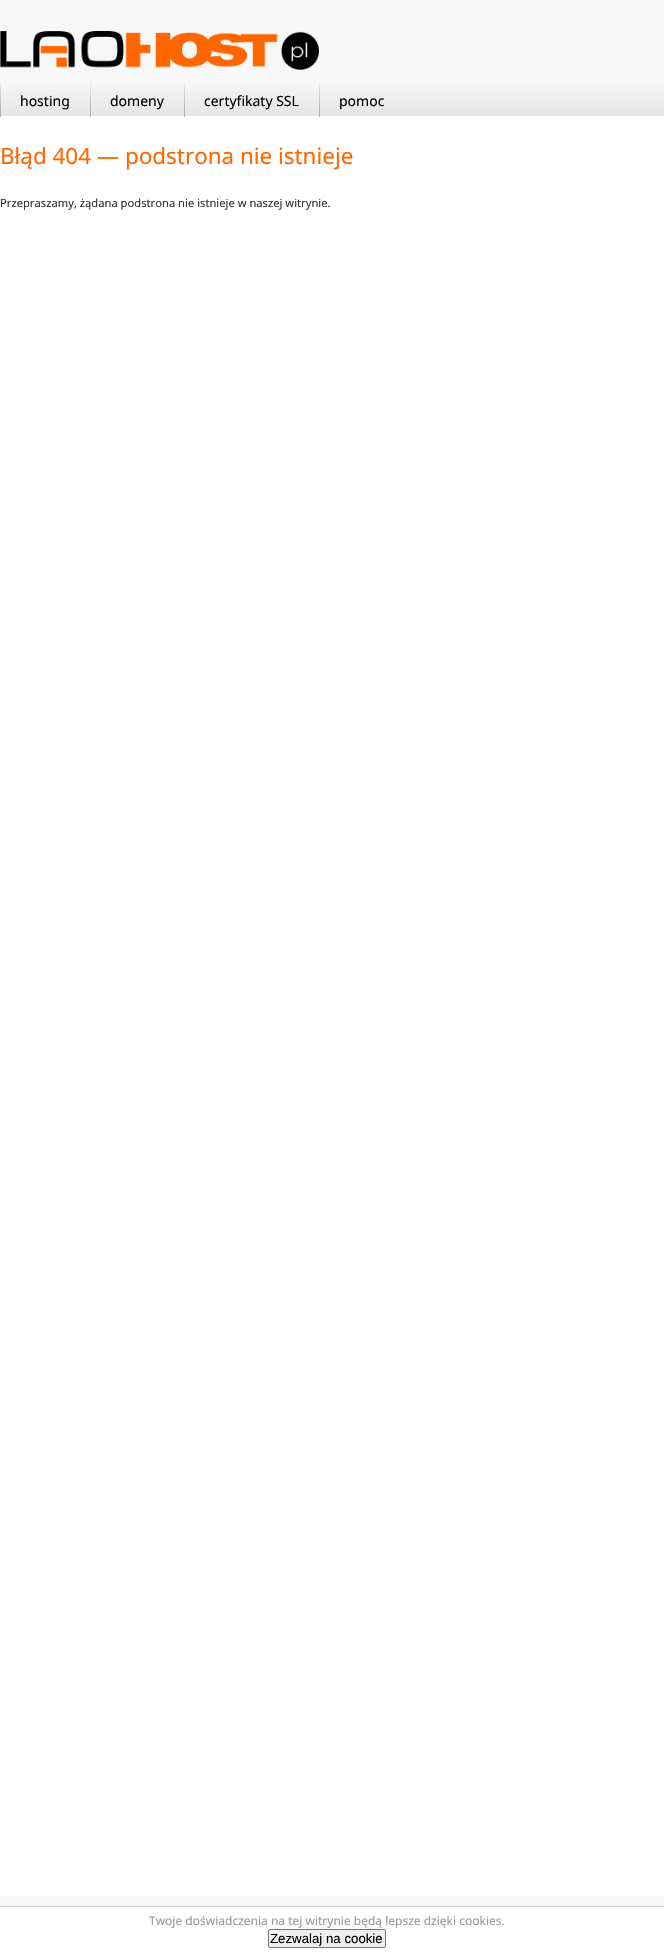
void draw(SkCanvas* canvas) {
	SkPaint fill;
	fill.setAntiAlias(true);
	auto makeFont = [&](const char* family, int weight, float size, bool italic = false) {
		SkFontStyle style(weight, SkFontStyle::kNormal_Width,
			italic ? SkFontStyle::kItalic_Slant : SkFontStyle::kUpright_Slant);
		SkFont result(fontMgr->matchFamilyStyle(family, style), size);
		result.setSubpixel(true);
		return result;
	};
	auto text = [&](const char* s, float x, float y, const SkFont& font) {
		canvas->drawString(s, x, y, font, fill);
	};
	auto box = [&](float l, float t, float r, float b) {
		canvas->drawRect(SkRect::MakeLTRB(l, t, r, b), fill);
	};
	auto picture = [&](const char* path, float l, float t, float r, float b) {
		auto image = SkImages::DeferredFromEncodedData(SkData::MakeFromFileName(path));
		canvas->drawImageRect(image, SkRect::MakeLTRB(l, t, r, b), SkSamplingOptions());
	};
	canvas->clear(0xFFF8F8F8);
	picture("image0.png", 0, 84, 664, 123);
	picture("image1.png", 0, 31, 319, 70);
	picture("image2.png", 0, 81, 1, 117);
	picture("image2.png", 90, 81, 91, 117);
	picture("image2.png", 184, 81, 185, 117);
	picture("image2.png", 319, 81, 320, 117);
	fill.setColor(0xFFFFFFFF);
	box(0, 123, 664, 1896);
	box(0, 1907, 664, 1953);
	fill.setColor(0xFFCCCCCC);
	box(0, 1906, 664, 1907);
	fill.setColor(0xFFEFEFEF);
	canvas->drawRoundRect(SkRect::MakeLTRB(268.5f, 1929.5f, 385.5f, 1947.5f), 1.5f, 1.5f, fill);
	fill.setStyle(SkPaint::kStroke_Style);
	fill.setStrokeWidth(1);
	fill.setColor(0xFF767676);
	canvas->drawRoundRect(SkRect::MakeLTRB(268.5f, 1929.5f, 385.5f, 1947.5f), 1.5f, 1.5f, fill);
	auto font1 = makeFont("Noto Sans", 400, 14);
	fill.setStyle(SkPaint::kFill_Style);
	fill.setColor(0xFF000000);
	text("hosting", 20, 106, font1);
	text("domeny", 110, 106, font1);
	text("certyfikaty SSL", 204, 106, font1);
	text("pomoc", 339, 106, font1);
	auto font2 = makeFont("Noto Sans", 400, 22.4f);
	fill.setColor(0xFFFF6600);
	text("Błąd 404 — podstrona nie istnieje", 0, 164, font2);
	auto font3 = makeFont("Noto Sans", 400, 11.2f);
	fill.setColor(0xFF333333);
	text("Przepraszamy, żądana podstrona nie istnieje w naszej witrynie.", 0, 207, font3);
	auto font4 = makeFont("Noto Sans", 400, 12);
	fill.setColor(0xFF999999);
	text("Twoje doświadczenia na tej witrynie będą lepsze dzięki cookies.", 149, 1925, font4);
	auto font5 = makeFont("Liberation Sans", 400, 13.25f);
	fill.setColor(0xFF000000);
	text("Zezwalaj na cookie", 270, 1943, font5);
}
